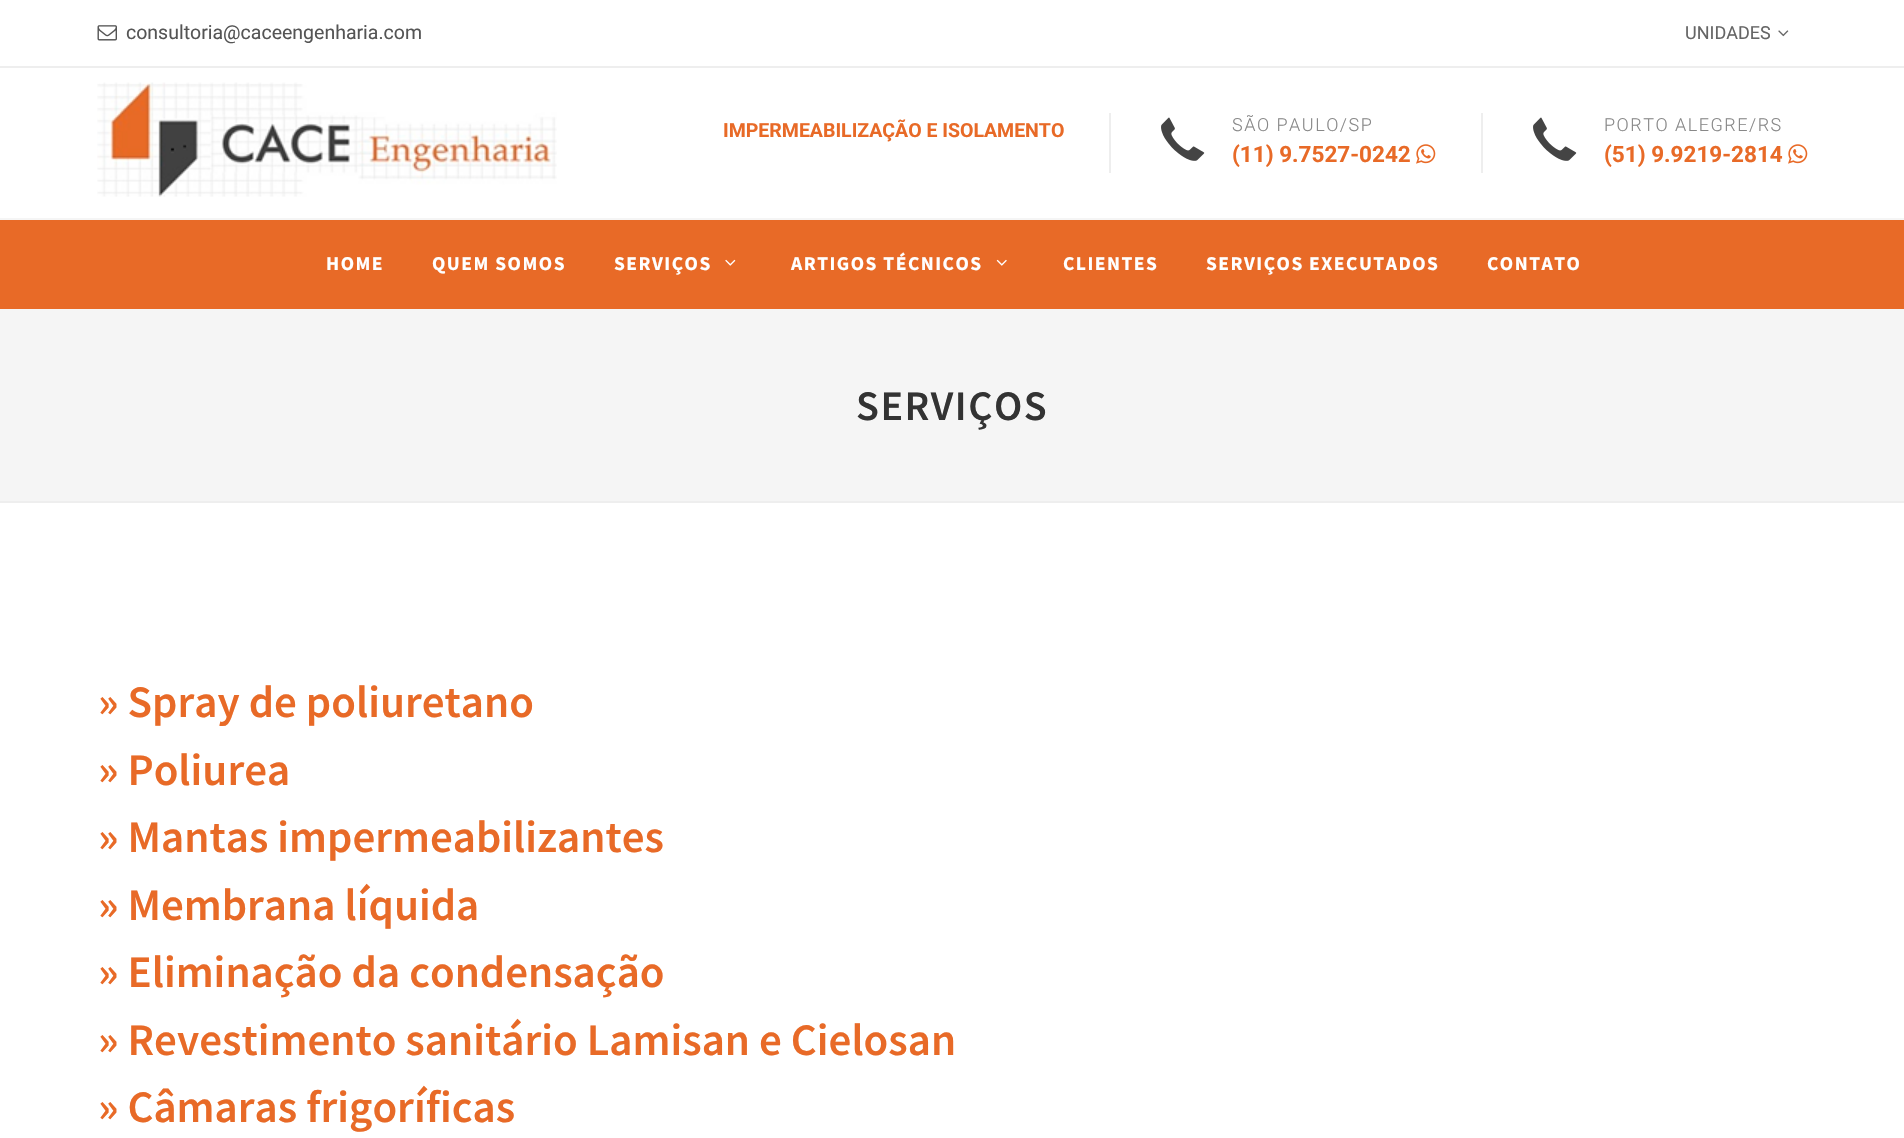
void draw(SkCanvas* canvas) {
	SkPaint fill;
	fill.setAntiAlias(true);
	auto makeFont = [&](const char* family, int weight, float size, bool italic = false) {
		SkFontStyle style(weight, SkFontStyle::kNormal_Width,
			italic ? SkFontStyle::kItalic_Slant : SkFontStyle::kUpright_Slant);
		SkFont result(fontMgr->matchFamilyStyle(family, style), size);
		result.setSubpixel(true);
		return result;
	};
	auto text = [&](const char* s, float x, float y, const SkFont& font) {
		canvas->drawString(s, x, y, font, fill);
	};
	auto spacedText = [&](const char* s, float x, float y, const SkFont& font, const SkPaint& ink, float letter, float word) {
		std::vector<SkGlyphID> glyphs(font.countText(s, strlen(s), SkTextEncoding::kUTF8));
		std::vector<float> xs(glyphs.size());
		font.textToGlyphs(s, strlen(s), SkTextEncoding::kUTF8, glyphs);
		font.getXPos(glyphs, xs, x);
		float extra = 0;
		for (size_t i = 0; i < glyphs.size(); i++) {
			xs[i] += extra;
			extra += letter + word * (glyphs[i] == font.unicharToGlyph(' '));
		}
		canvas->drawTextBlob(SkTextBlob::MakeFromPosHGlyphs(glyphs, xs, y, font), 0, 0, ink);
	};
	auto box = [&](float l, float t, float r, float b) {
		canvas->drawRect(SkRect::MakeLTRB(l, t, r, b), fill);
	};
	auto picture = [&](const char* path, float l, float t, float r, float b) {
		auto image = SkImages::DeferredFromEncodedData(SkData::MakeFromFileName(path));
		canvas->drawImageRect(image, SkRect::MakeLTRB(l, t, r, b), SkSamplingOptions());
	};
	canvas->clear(0xFFFFFFFF);
	fill.setColor(0xFFEEEEEE);
	box(0, 66, 1904, 68);
	picture("image0.png", 97, 25, 117, 41);
	picture("image1.png", 1778, 30, 1789, 37);
	fill.setColor(0xFFE86A27);
	box(0, 220, 1904, 309);
	picture("image2.png", 97, 82, 557, 197);
	fill.setColor(0xFFEEEEEE);
	box(1109, 113, 1111, 173);
	picture("image3.png", 1161, 117, 1205, 161);
	picture("image4.png", 1416, 144, 1436, 164);
	box(1481, 113, 1483, 173);
	picture("image3.png", 1533, 117, 1577, 161);
	picture("image4.png", 1788, 144, 1808, 164);
	fill.setColor(0xFFF5F5F5);
	box(0, 218, 1904, 220);
	picture("image5.png", 725, 259, 736, 266);
	picture("image6.png", 996, 259, 1007, 266);
	box(0, 309, 1904, 501);
	fill.setColor(0xFFEEEEEE);
	box(0, 501, 1904, 503);
	auto font1 = makeFont("Roboto", 400, 19.5f);
	fill.setColor(0xFF555555);
	text("consultoria@caceengenharia.com", 126, 39, font1);
	auto font2 = makeFont("Roboto", 400, 18);
	fill.setColor(0xFF666666);
	text("UNIDADES", 1685, 39, font2);
	auto font3 = makeFont("Roboto", 700, 19.5f);
	fill.setColor(0xFFE86A27);
	text("IMPERMEABILIZAÇÃO E ISOLAMENTO", 723, 137, font3);
	auto font4 = makeFont("Roboto", 300, 18);
	fill.setColor(0xFF888888);
	spacedText("SÃO PAULO/SP", 1232, 131, font4, fill, 1.5f, 0);
	auto font5 = makeFont("Roboto", 700, 22.5f);
	fill.setColor(0xFFE86A27);
	text("(11) 9.7527-0242", 1232, 162, font5);
	fill.setColor(0xFF888888);
	spacedText("PORTO ALEGRE/RS", 1604, 131, font4, fill, 1.5f, 0);
	fill.setColor(0xFFE86A27);
	text("(51) 9.9219-2814", 1604, 162, font5);
	auto font6 = makeFont("Source Sans Pro", 700, 19.5f);
	fill.setColor(0xFFFFFFFF);
	spacedText("HOME", 326, 270, font6, fill, 1.5f, 0);
	spacedText("QUEM SOMOS", 432, 270, font6, fill, 1.5f, 0);
	spacedText("SERVIÇOS", 614, 270, font6, fill, 1.5f, 0);
	spacedText("ARTIGOS TÉCNICOS", 791, 270, font6, fill, 1.5f, 0);
	spacedText("CLIENTES", 1063, 270, font6, fill, 1.5f, 0);
	spacedText("SERVIÇOS EXECUTADOS", 1206, 270, font6, fill, 1.5f, 0);
	spacedText("CONTATO", 1487, 270, font6, fill, 1.5f, 0);
	auto font7 = makeFont("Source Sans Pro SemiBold", 600, 42);
	fill.setColor(0xFF333333);
	spacedText("SERVIÇOS", 856, 420, font7, fill, 1.5f, 0);
	auto font8 = makeFont("Source Sans Pro SemiBold", 600, 45);
	fill.setColor(0xFFE86A27);
	text("» Spray de poliuretano", 98, 717, font8);
	text("» Poliurea", 98, 785, font8);
	text("» Mantas impermeabilizantes", 98, 852, font8);
	text("» Membrana líquida", 98, 920, font8);
	text("» Eliminação da condensação", 98, 987, font8);
	text("» Revestimento sanitário Lamisan e Cielosan", 98, 1055, font8);
	text("» Câmaras frigoríficas", 98, 1122, font8);
}
